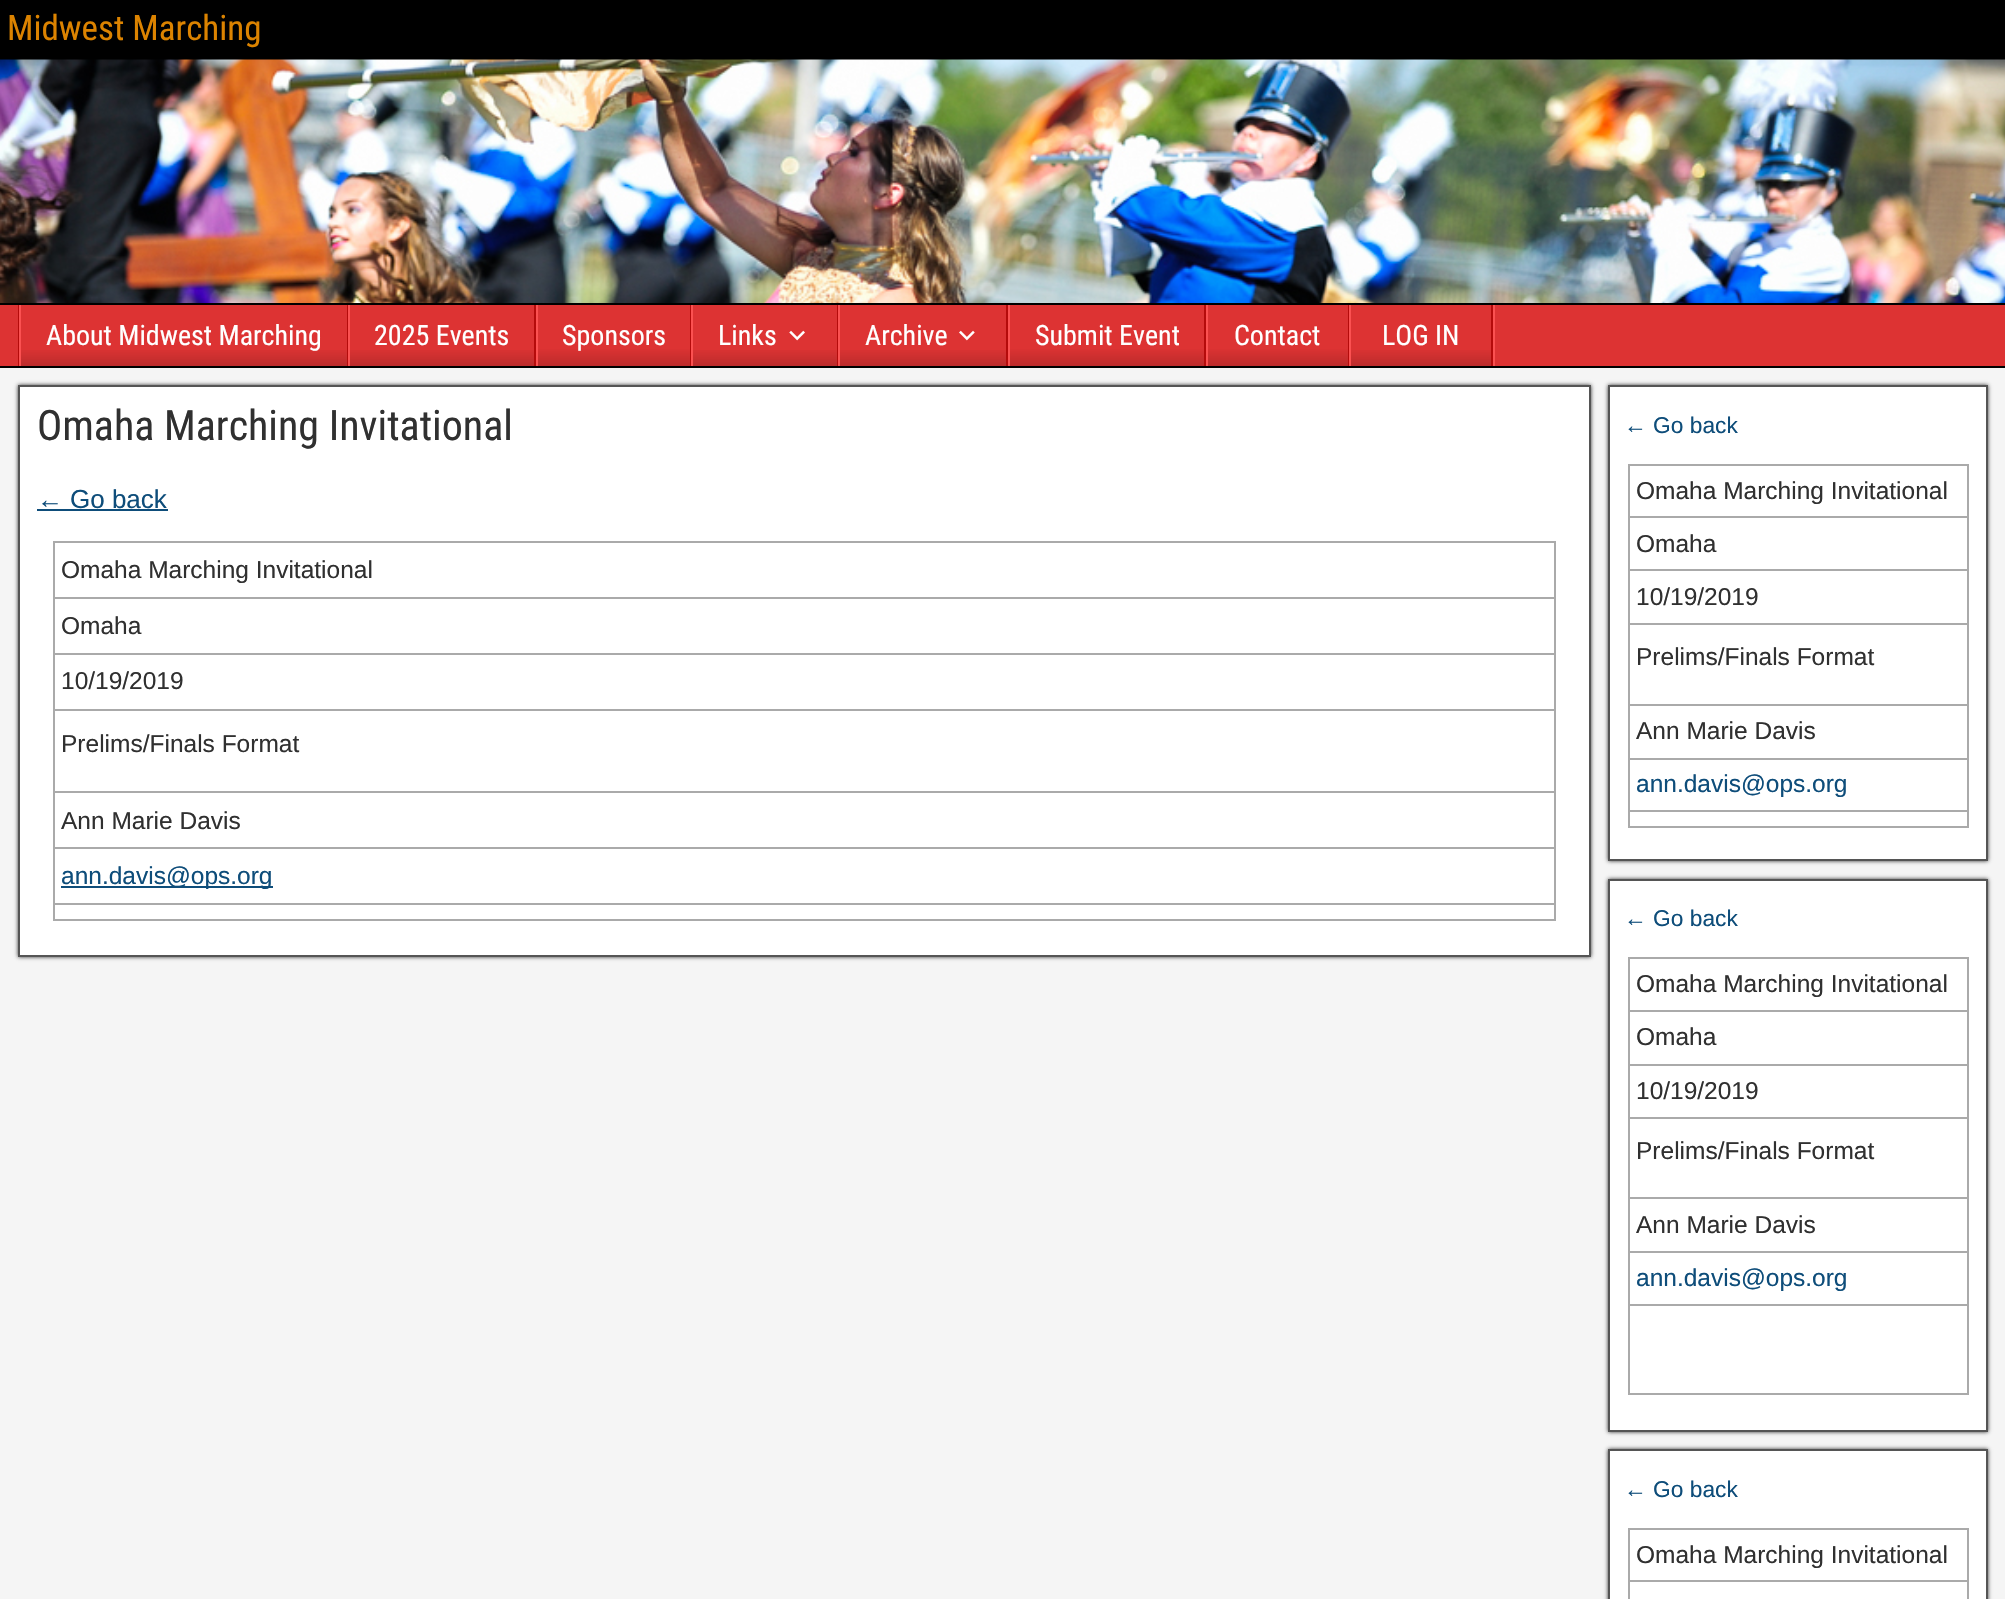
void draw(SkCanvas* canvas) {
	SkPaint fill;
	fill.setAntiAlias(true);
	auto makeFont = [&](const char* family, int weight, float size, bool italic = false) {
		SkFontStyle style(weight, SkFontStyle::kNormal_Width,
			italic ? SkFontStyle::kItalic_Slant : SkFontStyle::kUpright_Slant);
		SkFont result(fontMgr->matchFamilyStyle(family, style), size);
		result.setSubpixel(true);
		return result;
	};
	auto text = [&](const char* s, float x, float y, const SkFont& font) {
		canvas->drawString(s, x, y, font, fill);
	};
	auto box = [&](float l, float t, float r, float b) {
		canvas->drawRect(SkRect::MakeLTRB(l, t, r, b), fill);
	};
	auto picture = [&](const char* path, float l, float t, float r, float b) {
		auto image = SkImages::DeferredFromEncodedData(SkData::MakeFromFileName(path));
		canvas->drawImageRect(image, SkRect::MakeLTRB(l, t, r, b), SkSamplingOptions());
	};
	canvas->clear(0xFF000000);
	picture("image0.png", 0, 59, 2005, 303);
	fill.setColor(0xFFDD3333);
	box(0, 305, 2005, 366);
	fill.setColor(0xFFFB5151);
	box(1493, 305, 1495, 366);
	fill.setColor(0xFFB50B0B);
	box(18, 305, 19, 366);
	{
		const SkColor colors[] = {0x00000000, 0x26000000};
		const float stops[] = {0.7f, 1};
		const SkPoint ends[] = {{184, 305}, {184, 366}};
		fill.setShader(SkGradientShader::MakeLinear(ends, colors, stops, 2, SkTileMode::kClamp));
		fill.setAlpha(255);
	}
	box(21, 350, 347, 366);
	fill.setShader(nullptr);
	fill.setColor(0xFFB50B0B);
	box(347, 305, 348, 366);
	fill.setColor(0xFFFB5151);
	box(19, 305, 21, 366);
	{
		const SkColor colors[] = {0x00000000, 0x26000000};
		const float stops[] = {0.7f, 1};
		const SkPoint ends[] = {{442, 305}, {442, 366}};
		fill.setShader(SkGradientShader::MakeLinear(ends, colors, stops, 2, SkTileMode::kClamp));
		fill.setAlpha(255);
	}
	box(350, 350, 534, 366);
	fill.setShader(nullptr);
	fill.setColor(0xFFB50B0B);
	box(534, 305, 536, 366);
	fill.setColor(0xFFFB5151);
	box(348, 305, 350, 366);
	{
		const SkColor colors[] = {0xFFDD3333, 0xFFBC2B2B};
		const float stops[] = {0.7f, 1};
		const SkPoint ends[] = {{613, 305}, {613, 366}};
		fill.setShader(SkGradientShader::MakeLinear(ends, colors, stops, 2, SkTileMode::kClamp));
		fill.setAlpha(255);
	}
	box(538, 349, 690, 366);
	fill.setShader(nullptr);
	fill.setColor(0xFFB50B0B);
	box(690, 305, 691, 366);
	fill.setColor(0xFFFB5151);
	box(536, 305, 538, 366);
	{
		const SkColor colors[] = {0x00000000, 0x26000000};
		const float stops[] = {0.7f, 1};
		const SkPoint ends[] = {{765, 305}, {765, 366}};
		fill.setShader(SkGradientShader::MakeLinear(ends, colors, stops, 2, SkTileMode::kClamp));
		fill.setAlpha(255);
	}
	box(693, 350, 837, 366);
	fill.setShader(nullptr);
	fill.setColor(0xFFB50B0B);
	box(837, 305, 838, 366);
	fill.setColor(0xFFFB5151);
	box(691, 305, 693, 366);
	picture("image1.png", 789, 330, 805, 341);
	{
		const SkColor colors[] = {0x00000000, 0x26000000};
		const float stops[] = {0.7f, 1};
		const SkPoint ends[] = {{923, 305}, {923, 366}};
		fill.setShader(SkGradientShader::MakeLinear(ends, colors, stops, 2, SkTileMode::kClamp));
		fill.setAlpha(255);
	}
	box(840, 350, 1006, 366);
	fill.setShader(nullptr);
	fill.setColor(0xFFB50B0B);
	box(1006, 305, 1008, 366);
	fill.setColor(0xFFFB5151);
	box(838, 305, 840, 366);
	picture("image2.png", 959, 330, 975, 341);
	{
		const SkColor colors[] = {0xFFDD3333, 0xFFBC2B2B};
		const float stops[] = {0.7f, 1};
		const SkPoint ends[] = {{1107, 305}, {1107, 366}};
		fill.setShader(SkGradientShader::MakeLinear(ends, colors, stops, 2, SkTileMode::kClamp));
		fill.setAlpha(255);
	}
	box(1010, 349, 1204, 366);
	fill.setShader(nullptr);
	fill.setColor(0xFFB50B0B);
	box(1204, 305, 1206, 366);
	fill.setColor(0xFFFB5151);
	box(1008, 305, 1010, 366);
	{
		const SkColor colors[] = {0xFFDD3333, 0xFFBC2B2B};
		const float stops[] = {0.7f, 1};
		const SkPoint ends[] = {{1278, 305}, {1278, 366}};
		fill.setShader(SkGradientShader::MakeLinear(ends, colors, stops, 2, SkTileMode::kClamp));
		fill.setAlpha(255);
	}
	box(1208, 349, 1348, 366);
	fill.setShader(nullptr);
	fill.setColor(0xFFB50B0B);
	box(1348, 305, 1349, 366);
	fill.setColor(0xFFFB5151);
	box(1206, 305, 1208, 366);
	{
		const SkColor colors[] = {0x00000000, 0x26000000};
		const float stops[] = {0.7f, 1};
		const SkPoint ends[] = {{1421, 305}, {1421, 366}};
		fill.setShader(SkGradientShader::MakeLinear(ends, colors, stops, 2, SkTileMode::kClamp));
		fill.setAlpha(255);
	}
	box(1351, 350, 1491, 366);
	fill.setShader(nullptr);
	fill.setColor(0xFFB50B0B);
	box(1491, 305, 1493, 366);
	fill.setColor(0xFFFB5151);
	box(1349, 305, 1351, 366);
	fill.setColor(0xFFF5F5F5);
	box(0, 368, 2005, 1599);
	fill.setColor(0xFF333333);
	fill.setMaskFilter(SkMaskFilter::MakeBlur(kNormal_SkBlurStyle, 2));
	canvas->drawRect(SkRect::MakeLTRB(18, 385, 1591, 957), fill);
	fill.setMaskFilter(nullptr);
	fill.setColor(0xFFFFFFFF);
	canvas->drawRect(SkRect::MakeLTRB(19, 386, 1590, 956), fill);
	fill.setStyle(SkPaint::kStroke_Style);
	fill.setStrokeWidth(2);
	fill.setColor(0xFF555555);
	canvas->drawRect(SkRect::MakeLTRB(19, 386, 1590, 956), fill);
	fill.setStyle(SkPaint::kFill_Style);
	fill.setColor(0xFF0E4D7A);
	box(37, 509, 168, 511);
	fill.setColor(0xFFAAAAAA);
	box(53, 541, 1556, 543);
	box(53, 597, 1556, 599);
	box(53, 653, 1556, 655);
	box(53, 709, 1556, 711);
	box(53, 791, 1556, 793);
	box(53, 847, 1556, 849);
	box(53, 903, 1556, 905);
	box(1554, 903, 1556, 921);
	box(1554, 847, 1556, 905);
	box(1554, 791, 1556, 849);
	box(1554, 709, 1556, 793);
	box(1554, 653, 1556, 711);
	box(1554, 597, 1556, 655);
	box(1554, 541, 1556, 599);
	box(53, 919, 1556, 921);
	box(53, 903, 55, 921);
	box(53, 847, 55, 905);
	box(53, 791, 55, 849);
	box(53, 709, 55, 793);
	box(53, 653, 55, 711);
	box(53, 597, 55, 655);
	box(53, 541, 55, 599);
	fill.setColor(0xFF0E4D7A);
	box(61, 886, 273, 888);
	fill.setColor(0xFF333333);
	fill.setMaskFilter(SkMaskFilter::MakeBlur(kNormal_SkBlurStyle, 2));
	canvas->drawRect(SkRect::MakeLTRB(1608, 385, 1988, 861), fill);
	fill.setMaskFilter(nullptr);
	fill.setColor(0xFFFFFFFF);
	canvas->drawRect(SkRect::MakeLTRB(1609, 386, 1987, 860), fill);
	fill.setStyle(SkPaint::kStroke_Style);
	fill.setColor(0xFF555555);
	canvas->drawRect(SkRect::MakeLTRB(1609, 386, 1987, 860), fill);
	fill.setStyle(SkPaint::kFill_Style);
	fill.setColor(0xFFAAAAAA);
	box(1628, 464, 1969, 466);
	box(1628, 516, 1969, 518);
	box(1628, 569, 1969, 571);
	box(1628, 623, 1969, 625);
	box(1628, 704, 1969, 706);
	box(1628, 758, 1969, 760);
	box(1628, 810, 1969, 812);
	box(1967, 810, 1969, 828);
	box(1967, 758, 1969, 812);
	box(1967, 704, 1969, 760);
	box(1967, 623, 1969, 705);
	box(1967, 569, 1969, 625);
	box(1967, 516, 1969, 571);
	box(1967, 464, 1969, 518);
	box(1628, 826, 1969, 828);
	box(1628, 810, 1630, 828);
	box(1628, 758, 1630, 812);
	box(1628, 704, 1630, 760);
	box(1628, 623, 1630, 705);
	box(1628, 569, 1630, 625);
	box(1628, 516, 1630, 571);
	box(1628, 464, 1630, 518);
	fill.setColor(0xFF333333);
	fill.setMaskFilter(SkMaskFilter::MakeBlur(kNormal_SkBlurStyle, 2));
	canvas->drawRect(SkRect::MakeLTRB(1608, 879, 1988, 1432), fill);
	fill.setMaskFilter(nullptr);
	fill.setColor(0xFFFFFFFF);
	canvas->drawRect(SkRect::MakeLTRB(1609, 880, 1987, 1431), fill);
	fill.setStyle(SkPaint::kStroke_Style);
	fill.setColor(0xFF555555);
	canvas->drawRect(SkRect::MakeLTRB(1609, 880, 1987, 1431), fill);
	fill.setStyle(SkPaint::kFill_Style);
	fill.setColor(0xFFAAAAAA);
	box(1628, 957, 1969, 959);
	box(1628, 1010, 1969, 1012);
	box(1628, 1064, 1969, 1066);
	box(1628, 1117, 1969, 1119);
	box(1628, 1197, 1969, 1199);
	box(1628, 1251, 1969, 1253);
	box(1628, 1304, 1969, 1306);
	box(1967, 1304, 1969, 1395);
	box(1967, 1251, 1969, 1306);
	box(1967, 1197, 1969, 1253);
	box(1967, 1117, 1969, 1199);
	box(1967, 1064, 1969, 1118);
	box(1967, 1010, 1969, 1066);
	box(1967, 957, 1969, 1012);
	box(1628, 1393, 1969, 1395);
	box(1628, 1304, 1630, 1395);
	box(1628, 1251, 1630, 1306);
	box(1628, 1197, 1630, 1253);
	box(1628, 1117, 1630, 1199);
	box(1628, 1064, 1630, 1118);
	box(1628, 1010, 1630, 1066);
	box(1628, 957, 1630, 1012);
	fill.setColor(0xFF333333);
	fill.setMaskFilter(SkMaskFilter::MakeBlur(kNormal_SkBlurStyle, 2));
	canvas->drawRect(SkRect::MakeLTRB(1608, 1449, 1988, 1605), fill);
	fill.setMaskFilter(nullptr);
	fill.setColor(0xFFFFFFFF);
	canvas->drawRect(SkRect::MakeLTRB(1609, 1450, 1987, 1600), fill);
	fill.setStyle(SkPaint::kStroke_Style);
	fill.setColor(0xFF555555);
	canvas->drawRect(SkRect::MakeLTRB(1609, 1450, 1987, 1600), fill);
	fill.setStyle(SkPaint::kFill_Style);
	fill.setColor(0xFFAAAAAA);
	box(1628, 1528, 1969, 1530);
	box(1628, 1580, 1969, 1582);
	box(1967, 1580, 1969, 1599);
	box(1967, 1528, 1969, 1582);
	box(1628, 1580, 1630, 1599);
	box(1628, 1528, 1630, 1582);
	auto font1 = makeFont("Roboto Condensed", 400, 35);
	fill.setColor(0xFFDC8300);
	text("Midwest Marching", 7, 40, font1);
	auto font2 = makeFont("Roboto Condensed", 400, 28);
	fill.setColor(0xFFFFFFFF);
	text("About Midwest Marching", 46, 345, font2);
	text("2025 Events", 374, 345, font2);
	text("Sponsors", 562, 345, font2);
	text("Links", 718, 345, font2);
	text("Archive", 865, 345, font2);
	text("Submit Event", 1035, 345, font2);
	text("Contact", 1234, 345, font2);
	text("LOG IN", 1382, 345, font2);
	auto font3 = makeFont("Roboto Condensed", 400, 42);
	fill.setColor(0xFF303030);
	text("Omaha Marching Invitational", 37, 440, font3);
	auto font4 = makeFont("Liberation Sans", 400, 26);
	fill.setColor(0xFF0E4D7A);
	text("←", 37, 508, font4);
	auto font5 = makeFont("Arimo", 400, 26);
	text("Go back", 70, 508, font5);
	auto font6 = makeFont("Arimo", 400, 24.5f);
	fill.setColor(0xFF303030);
	text("Omaha Marching Invitational", 61, 578, font6);
	text("Omaha", 61, 634, font6);
	text("10/19/2019", 61, 689, font6);
	text("Prelims/Finals Format", 61, 752, font6);
	text("Ann Marie Davis", 61, 829, font6);
	fill.setColor(0xFF0E4D7A);
	text("ann.davis@ops.org", 61, 884, font6);
	auto font7 = makeFont("Liberation Sans", 400, 22.75f);
	text("← Go back", 1624, 433, font7);
	auto font8 = makeFont("Liberation Sans", 400, 24.5f);
	fill.setColor(0xFF303030);
	text("Omaha Marching Invitational", 1636, 499, font8);
	text("Omaha", 1636, 552, font8);
	text("10/19/2019", 1636, 605, font8);
	text("Prelims/Finals Format", 1636, 665, font8);
	text("Ann Marie Davis", 1636, 739, font8);
	fill.setColor(0xFF0E4D7A);
	text("ann.davis@ops.org", 1636, 792, font8);
	text("← Go back", 1624, 926, font7);
	fill.setColor(0xFF303030);
	text("Omaha Marching Invitational", 1636, 992, font8);
	text("Omaha", 1636, 1045, font8);
	text("10/19/2019", 1636, 1099, font8);
	text("Prelims/Finals Format", 1636, 1159, font8);
	text("Ann Marie Davis", 1636, 1233, font8);
	fill.setColor(0xFF0E4D7A);
	text("ann.davis@ops.org", 1636, 1286, font8);
	text("← Go back", 1624, 1497, font7);
	fill.setColor(0xFF303030);
	text("Omaha Marching Invitational", 1636, 1563, font8);
}
